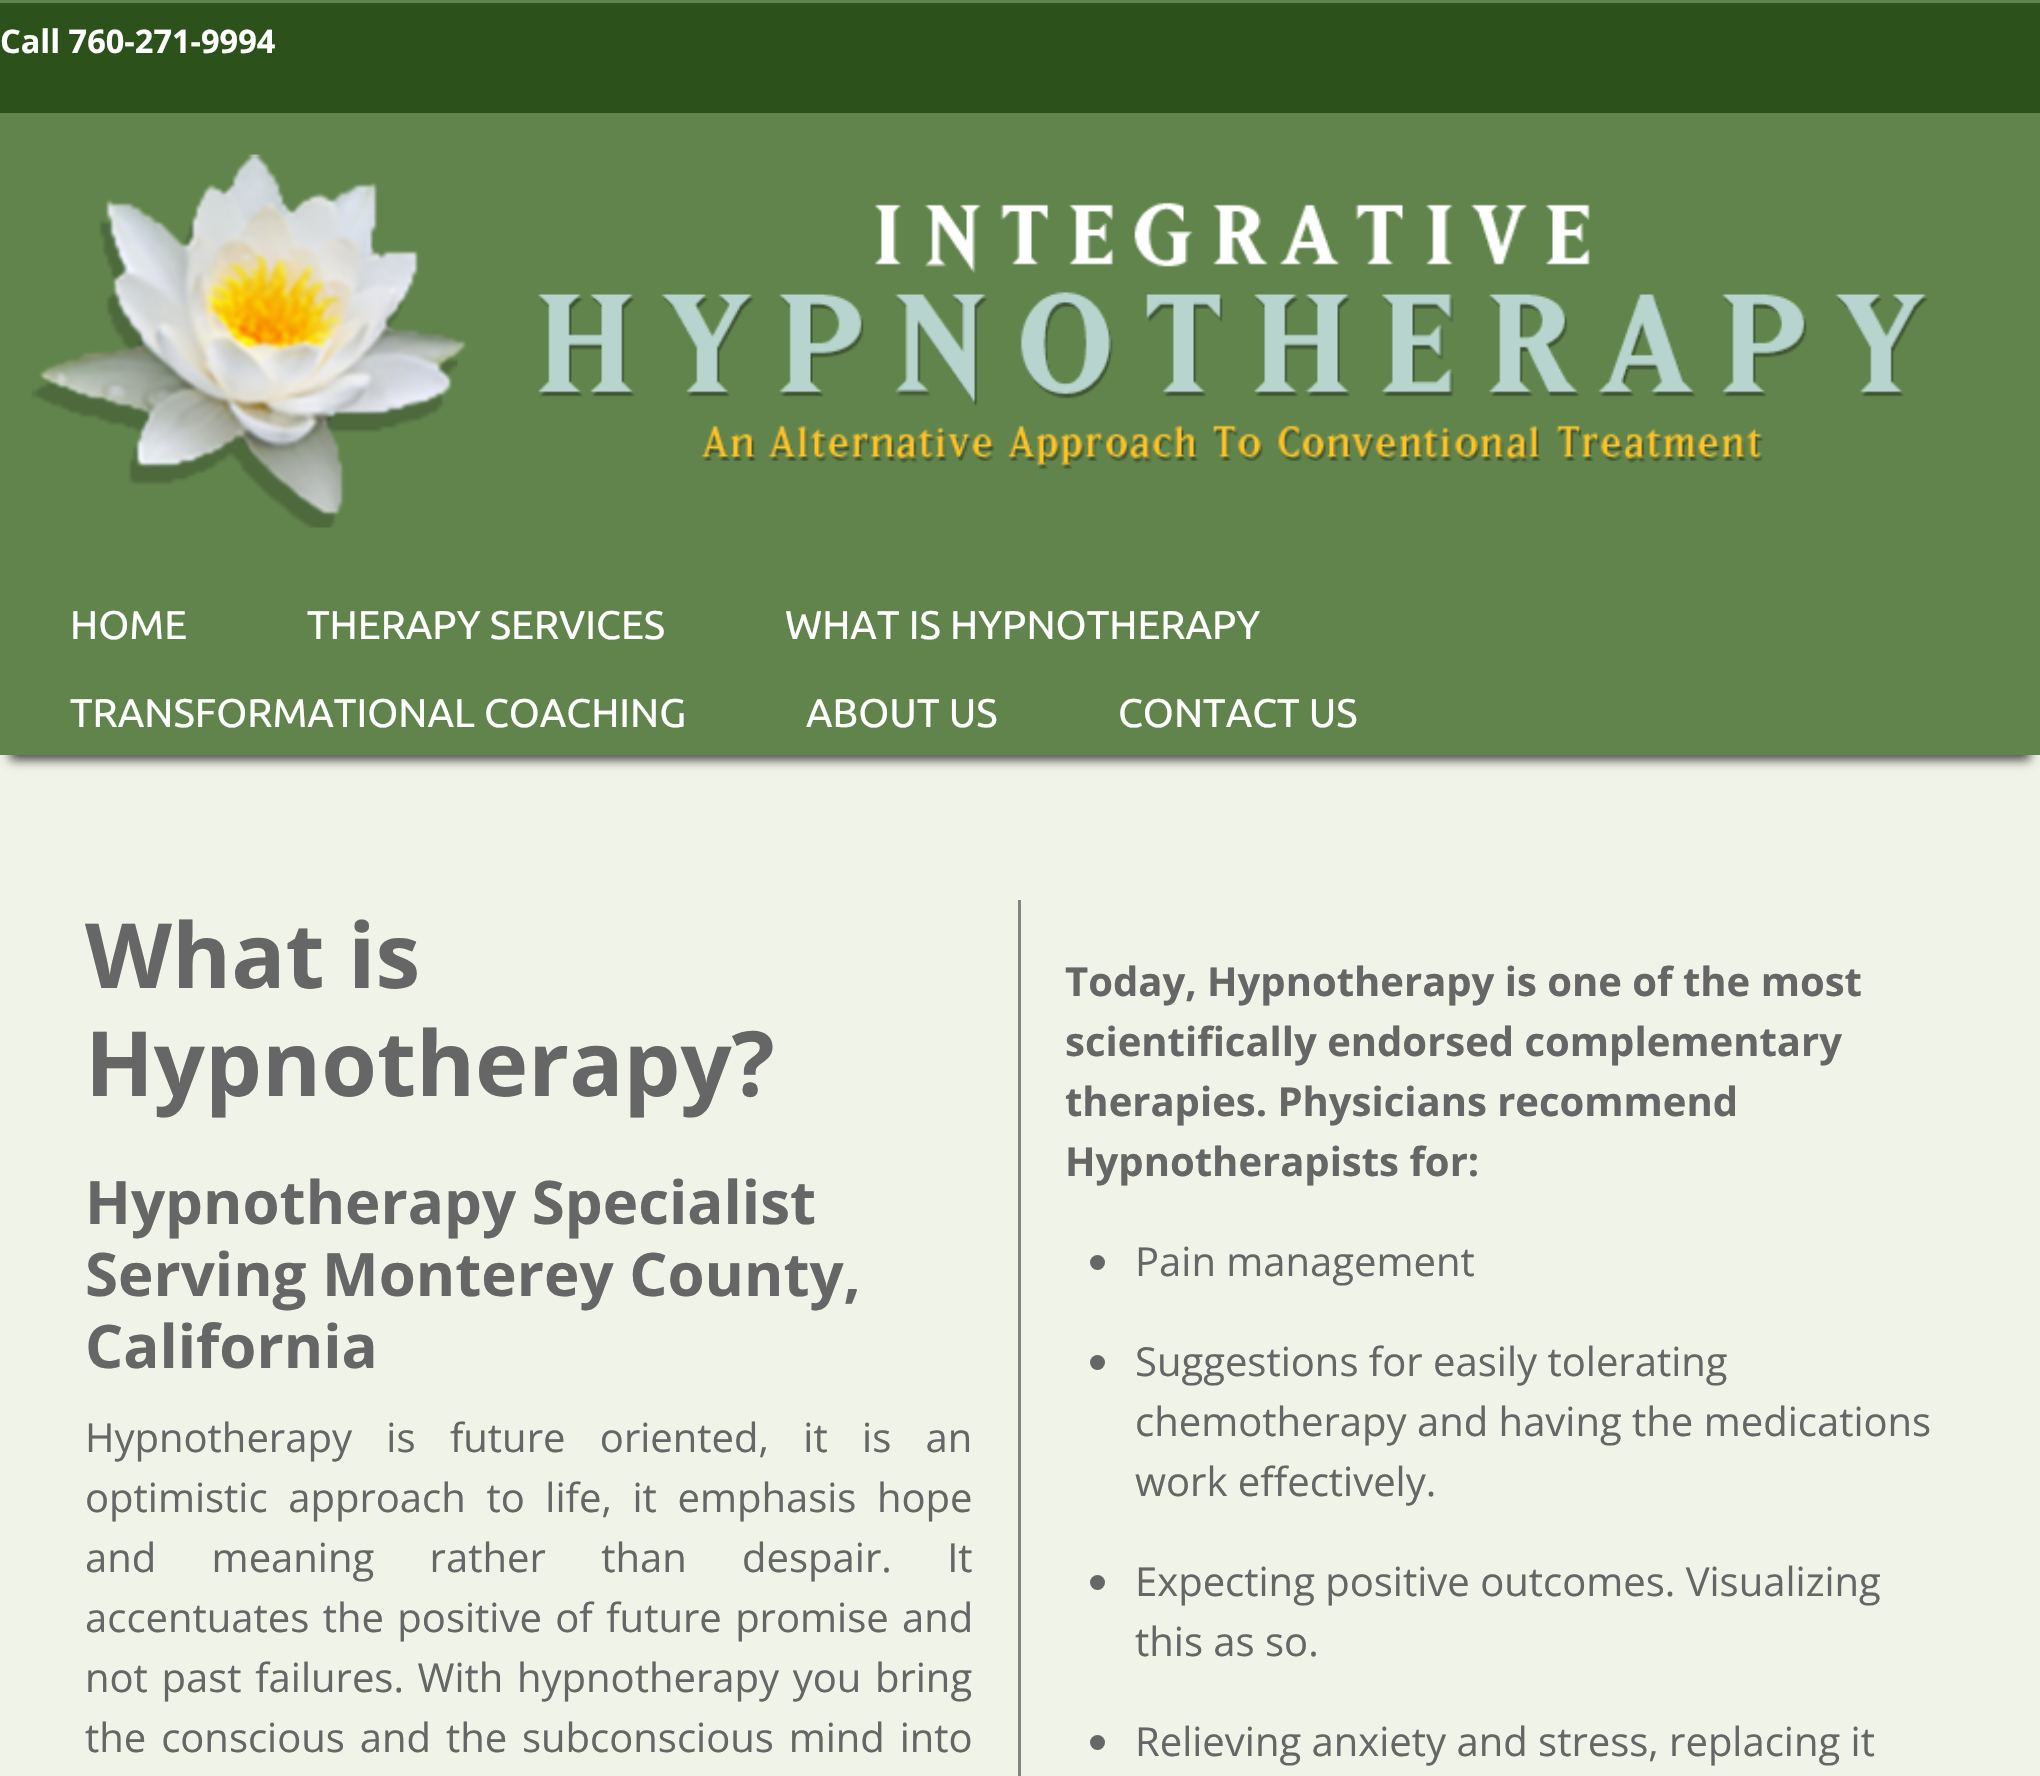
void draw(SkCanvas* canvas) {
	SkPaint fill;
	fill.setAntiAlias(true);
	auto makeFont = [&](const char* family, int weight, float size, bool italic = false) {
		SkFontStyle style(weight, SkFontStyle::kNormal_Width,
			italic ? SkFontStyle::kItalic_Slant : SkFontStyle::kUpright_Slant);
		SkFont result(fontMgr->matchFamilyStyle(family, style), size);
		result.setSubpixel(true);
		return result;
	};
	auto text = [&](const char* s, float x, float y, const SkFont& font) {
		canvas->drawString(s, x, y, font, fill);
	};
	auto spacedText = [&](const char* s, float x, float y, const SkFont& font, const SkPaint& ink, float letter, float word) {
		std::vector<SkGlyphID> glyphs(font.countText(s, strlen(s), SkTextEncoding::kUTF8));
		std::vector<float> xs(glyphs.size());
		font.textToGlyphs(s, strlen(s), SkTextEncoding::kUTF8, glyphs);
		font.getXPos(glyphs, xs, x);
		float extra = 0;
		for (size_t i = 0; i < glyphs.size(); i++) {
			xs[i] += extra;
			extra += letter + word * (glyphs[i] == font.unicharToGlyph(' '));
		}
		canvas->drawTextBlob(SkTextBlob::MakeFromPosHGlyphs(glyphs, xs, y, font), 0, 0, ink);
	};
	auto box = [&](float l, float t, float r, float b) {
		canvas->drawRect(SkRect::MakeLTRB(l, t, r, b), fill);
	};
	auto picture = [&](const char* path, float l, float t, float r, float b) {
		auto image = SkImages::DeferredFromEncodedData(SkData::MakeFromFileName(path));
		canvas->drawImageRect(image, SkRect::MakeLTRB(l, t, r, b), SkSamplingOptions());
	};
	canvas->clear(0xFFF0F3E7);
	fill.setColor(0xFF61844C);
	box(0, 0, 2040, 580);
	fill.setColor(0xFF2C511A);
	box(0, 3, 2040, 113);
	picture("image0.png", 31, 154, 1928, 528);
	fill.setColor(0xB3000000);
	fill.setMaskFilter(SkMaskFilter::MakeBlur(kNormal_SkBlurStyle, 5));
	canvas->drawRect(SkRect::MakeLTRB(10, 605, 2030, 760), fill);
	fill.setMaskFilter(nullptr);
	fill.setColor(0xFF61844C);
	box(0, 580, 2040, 755);
	fill.setColor(0xFF848484);
	box(1018, 900, 1021, 1776);
	fill.setColor(0xFF666666);
	canvas->drawCircle(1097.5f, 1262.5f, 7.5f, fill);
	canvas->drawCircle(1097.5f, 1362.5f, 7.5f, fill);
	canvas->drawCircle(1097.5f, 1582.5f, 7.5f, fill);
	canvas->drawCircle(1097.5f, 1742.5f, 7.5f, fill);
	auto font1 = makeFont("Open Sans", 700, 32.5f);
	fill.setColor(0xFFFFFFFF);
	text("Call 760-271-9994", 0, 53, font1);
	auto font2 = makeFont("Ubuntu", 400, 40);
	text("HOME", 70, 639, font2);
	text("THERAPY SERVICES", 307, 639, font2);
	text("WHAT IS HYPNOTHERAPY", 785, 639, font2);
	text("TRANSFORMATIONAL COACHING", 70, 727, font2);
	text("ABOUT US", 806, 727, font2);
	text("CONTACT US", 1118, 727, font2);
	auto font3 = makeFont("Open Sans", 700, 90);
	fill.setColor(0xFF666666);
	text("What is", 85, 988, font3);
	text("Hypnotherapy?", 85, 1096, font3);
	auto font4 = makeFont("Open Sans", 700, 60);
	text("Hypnotherapy Specialist", 85, 1224, font4);
	text("Serving Monterey County,", 85, 1296, font4);
	text("California", 85, 1368, font4);
	auto font5 = makeFont("Open Sans", 400, 40);
	spacedText("Hypnotherapy is future oriented, it is an", 85, 1452, font5, fill, 0, 24);
	spacedText("optimistic approach to life, it emphasis hope", 85, 1512, font5, fill, 0, 10.25f);
	spacedText("and meaning rather than despair. It", 85, 1572, font5, fill, 0, 45);
	spacedText("accentuates the positive of future promise and", 85, 1632, font5, fill, 0, 3);
	spacedText("not past failures. With hypnotherapy you bring", 85, 1692, font5, fill, 0, 3.25f);
	spacedText("the conscious and the subconscious mind into", 85, 1752, font5, fill, 0, 4.5f);
	auto font6 = makeFont("Open Sans", 700, 40);
	text("Today, Hypnotherapy is one of the most", 1065, 996, font6);
	text("scientifically endorsed complementary", 1065, 1056, font6);
	text("therapies. Physicians recommend", 1065, 1116, font6);
	text("Hypnotherapists for:", 1065, 1176, font6);
	text("Pain management", 1135, 1276, font5);
	text("Suggestions for easily tolerating", 1135, 1376, font5);
	text("chemotherapy and having the medications", 1135, 1436, font5);
	text("work effectively.", 1135, 1496, font5);
	text("Expecting positive outcomes. Visualizing", 1135, 1596, font5);
	text("this as so.", 1135, 1656, font5);
	text("Relieving anxiety and stress, replacing it", 1135, 1756, font5);
}
